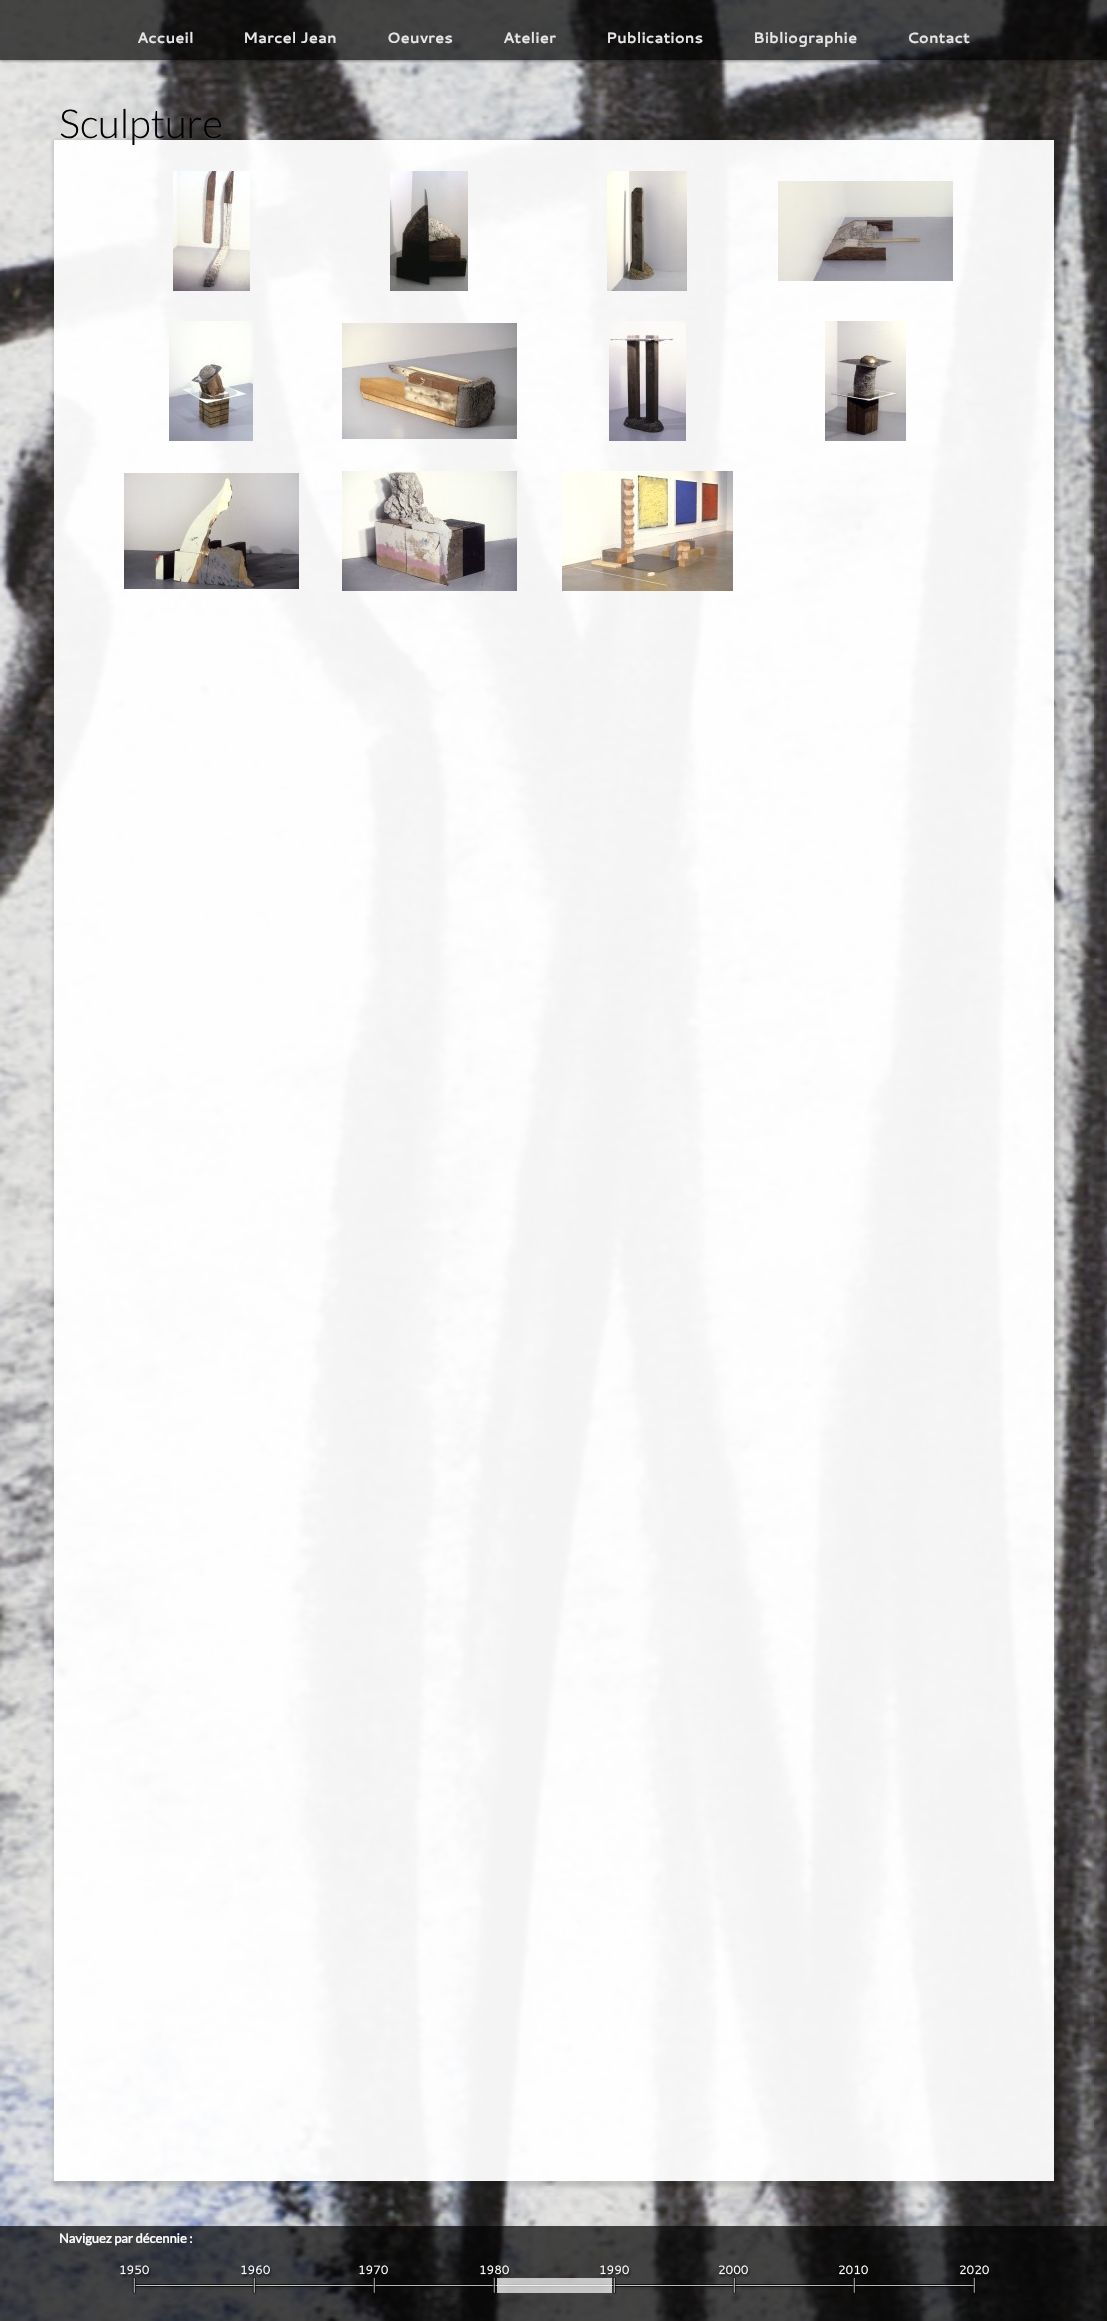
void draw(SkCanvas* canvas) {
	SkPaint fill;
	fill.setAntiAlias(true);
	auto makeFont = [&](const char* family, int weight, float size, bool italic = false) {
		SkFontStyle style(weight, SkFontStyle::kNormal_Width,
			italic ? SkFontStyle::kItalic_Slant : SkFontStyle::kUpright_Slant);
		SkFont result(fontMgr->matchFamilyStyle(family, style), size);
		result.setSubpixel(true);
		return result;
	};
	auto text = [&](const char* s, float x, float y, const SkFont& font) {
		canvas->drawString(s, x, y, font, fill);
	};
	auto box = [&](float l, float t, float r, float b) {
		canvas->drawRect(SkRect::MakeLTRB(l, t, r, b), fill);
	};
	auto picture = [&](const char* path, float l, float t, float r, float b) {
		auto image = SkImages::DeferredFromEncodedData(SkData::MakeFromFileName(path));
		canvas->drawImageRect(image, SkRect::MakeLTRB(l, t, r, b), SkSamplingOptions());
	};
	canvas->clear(0xFFFFFFFF);
	picture("image0.png", 0, 0, 1107, 2321);
	canvas->save();
	canvas->clipRect(SkRect::MakeLTRB(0, 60, 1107, 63));
	fill.setColor(0x66000000);
	fill.setMaskFilter(SkMaskFilter::MakeBlur(kNormal_SkBlurStyle, 1.5f));
	canvas->drawRect(SkRect::MakeLTRB(0, 1, 1107, 61), fill);
	fill.setMaskFilter(nullptr);
	canvas->restore();
	fill.setColor(0xB3000000);
	box(0, 0, 1107, 60);
	canvas->save();
	canvas->clipPath(SkPathBuilder(SkPathFillType::kEvenOdd).moveTo(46, 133).lineTo(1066, 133).lineTo(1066, 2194).lineTo(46, 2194).close().moveTo(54, 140).lineTo(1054, 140).lineTo(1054, 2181).lineTo(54, 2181).close().detach(), true);
	fill.setColor(0x26000000);
	fill.setMaskFilter(SkMaskFilter::MakeBlur(kNormal_SkBlurStyle, 2));
	canvas->drawRect(SkRect::MakeLTRB(53, 140, 1059, 2187), fill);
	fill.setMaskFilter(nullptr);
	canvas->restore();
	fill.setColor(0xF2FFFFFF);
	box(54, 140, 1054, 2181);
	picture("image1.png", 173, 171, 250, 291);
	picture("image2.png", 390, 171, 468, 291);
	picture("image3.png", 607, 171, 687, 291);
	picture("image4.png", 778, 181, 953, 281);
	picture("image5.png", 169, 321, 253, 441);
	picture("image6.png", 342, 323, 517, 439);
	picture("image7.png", 609, 321, 686, 441);
	picture("image8.png", 825, 321, 906, 441);
	picture("image9.png", 124, 473, 299, 589);
	picture("image10.png", 342, 471, 517, 591);
	picture("image11.png", 562, 471, 733, 591);
	fill.setColor(0xB3000000);
	box(0, 2226, 1107, 2321);
	picture("image12.png", 120, 2265, 134, 2294);
	picture("image13.png", 134, 2265, 254, 2295);
	picture("image14.png", 254, 2265, 374, 2295);
	picture("image15.png", 374, 2265, 494, 2294);
	picture("image16.png", 494, 2265, 614, 2294);
	picture("image17.png", 497, 2278, 612, 2293);
	picture("image18.png", 614, 2265, 734, 2295);
	picture("image19.png", 734, 2265, 854, 2295);
	picture("image20.png", 854, 2265, 974, 2294);
	picture("image21.png", 974, 2265, 990, 2294);
	auto font1 = makeFont("Cantarell", 700, 15);
	fill.setColor(0xFFE7E5E5);
	text("Accueil", 137, 43, font1);
	text("Marcel Jean", 243, 43, font1);
	text("Oeuvres", 387, 43, font1);
	text("Atelier", 503, 43, font1);
	text("Publications", 606, 43, font1);
	text("Bibliographie", 753, 43, font1);
	text("Contact", 907, 43, font1);
	auto font2 = makeFont("Lato", 300, 40);
	fill.setColor(0xFF000000);
	text("Sculpture", 59, 138, font2);
	auto font3 = makeFont("Lato", 700, 12.9f);
	fill.setColor(0xFFFFFFFF);
	text("Naviguez par décennie :", 59, 2243, font3);
}
